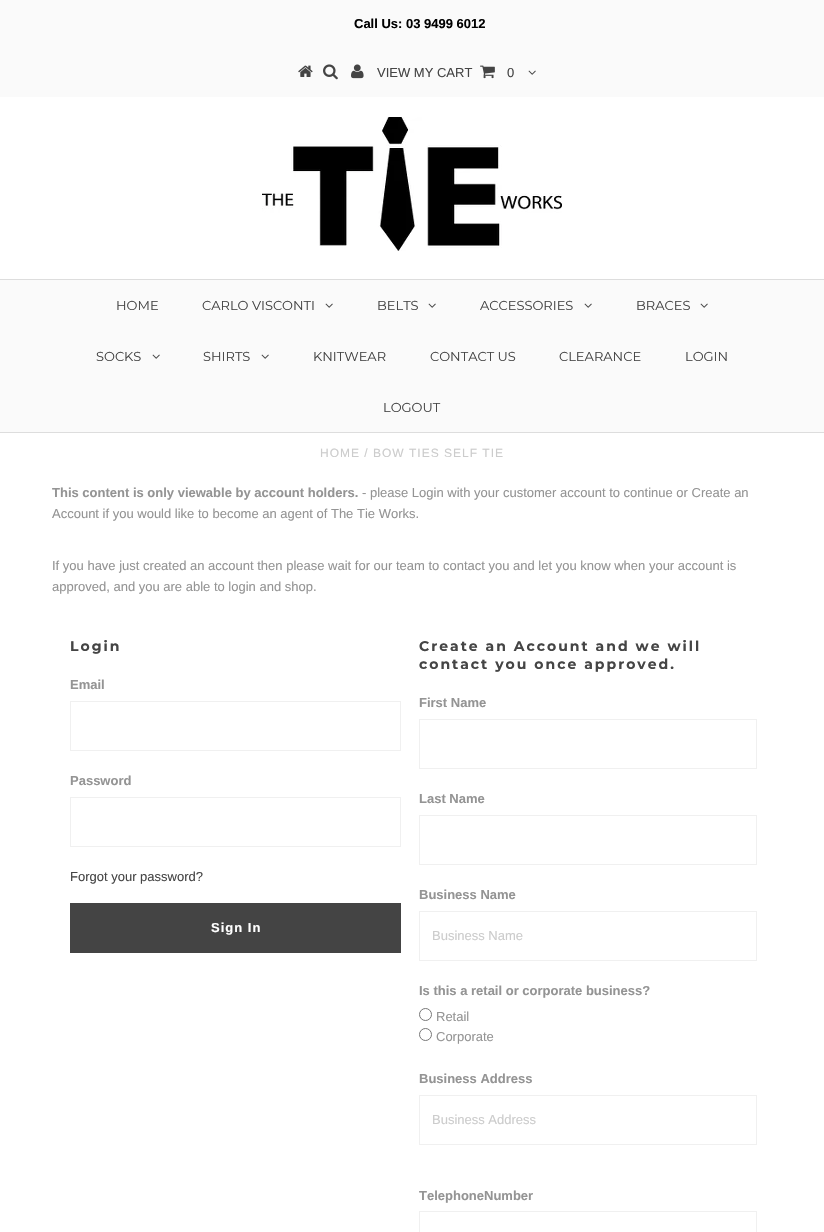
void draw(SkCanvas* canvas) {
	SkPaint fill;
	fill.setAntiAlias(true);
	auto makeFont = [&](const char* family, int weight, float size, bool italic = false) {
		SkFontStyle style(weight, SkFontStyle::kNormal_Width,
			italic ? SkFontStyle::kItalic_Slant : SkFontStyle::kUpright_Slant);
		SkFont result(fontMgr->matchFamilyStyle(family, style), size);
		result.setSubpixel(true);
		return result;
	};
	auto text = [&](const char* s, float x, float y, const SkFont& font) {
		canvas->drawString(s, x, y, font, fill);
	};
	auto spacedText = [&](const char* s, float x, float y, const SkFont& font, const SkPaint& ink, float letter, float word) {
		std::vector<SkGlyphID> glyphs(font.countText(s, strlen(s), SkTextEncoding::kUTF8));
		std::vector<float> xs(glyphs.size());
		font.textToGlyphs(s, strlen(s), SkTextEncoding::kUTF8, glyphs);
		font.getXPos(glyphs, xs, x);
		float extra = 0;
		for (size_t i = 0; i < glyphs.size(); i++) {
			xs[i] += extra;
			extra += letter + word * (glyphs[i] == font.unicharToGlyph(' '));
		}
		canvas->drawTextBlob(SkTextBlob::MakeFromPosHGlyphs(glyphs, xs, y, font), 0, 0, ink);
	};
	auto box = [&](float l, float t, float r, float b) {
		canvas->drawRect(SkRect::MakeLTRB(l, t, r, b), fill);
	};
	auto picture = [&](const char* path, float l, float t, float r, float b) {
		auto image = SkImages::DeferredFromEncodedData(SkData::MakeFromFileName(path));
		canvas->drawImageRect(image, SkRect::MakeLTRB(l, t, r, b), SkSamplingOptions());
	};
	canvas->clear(0xFFFFFFFF);
	fill.setColor(0xFFFAFAFA);
	box(0, 0, 824, 97);
	picture("image0.png", 298, 65, 313, 77);
	picture("image1.png", 323, 64, 338, 80);
	picture("image2.png", 351, 64, 364, 79);
	picture("image3.png", 480, 65, 495, 79);
	picture("image4.png", 528, 70, 536, 75);
	picture("image5.png", 262, 117, 562, 251);
	box(0, 280, 824, 432);
	fill.setColor(0xFFDDDDDD);
	box(0, 279, 824, 280);
	box(0, 432, 824, 433);
	picture("image6.png", 325, 303, 333, 308);
	picture("image6.png", 428, 303, 436, 308);
	picture("image6.png", 584, 303, 592, 308);
	picture("image6.png", 700, 303, 708, 308);
	picture("image6.png", 152, 354, 160, 359);
	picture("image6.png", 261, 354, 269, 359);
	fill.setStyle(SkPaint::kStroke_Style);
	fill.setStrokeWidth(1);
	fill.setColor(0xFFF0F0F0);
	canvas->drawRect(SkRect::MakeLTRB(70.5f, 701.5f, 400.5f, 750.5f), fill);
	canvas->drawRect(SkRect::MakeLTRB(70.5f, 797.5f, 400.5f, 846.5f), fill);
	fill.setStyle(SkPaint::kFill_Style);
	fill.setColor(0xFF444444);
	box(70, 903, 401, 953);
	fill.setStyle(SkPaint::kStroke_Style);
	fill.setColor(0xFFF0F0F0);
	canvas->drawRect(SkRect::MakeLTRB(419.5f, 719.5f, 756.5f, 768.5f), fill);
	canvas->drawRect(SkRect::MakeLTRB(419.5f, 815.5f, 756.5f, 864.5f), fill);
	canvas->drawRect(SkRect::MakeLTRB(419.5f, 911.5f, 756.5f, 960.5f), fill);
	fill.setColor(0xFF767676);
	canvas->drawCircle(425.5f, 1014.5f, 6, fill);
	canvas->drawCircle(425.5f, 1034.5f, 6, fill);
	fill.setColor(0xFFF0F0F0);
	canvas->drawRect(SkRect::MakeLTRB(419.5f, 1095.5f, 756.5f, 1144.5f), fill);
	canvas->drawRect(SkRect::MakeLTRB(419.5f, 1211.5f, 756.5f, 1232.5f), fill);
	auto font1 = makeFont("Liberation Sans", 700, 13);
	fill.setStyle(SkPaint::kFill_Style);
	fill.setColor(0xFF000000);
	text("Call Us: 03 9499 6012", 354, 28, font1);
	auto font2 = makeFont("Liberation Sans", 400, 13);
	fill.setColor(0xFF454545);
	text("VIEW MY CART", 377, 77, font2);
	text("0", 507, 77, font2);
	auto font3 = makeFont("Montserrat", 400, 13);
	text("HOME", 116, 310, font3);
	text("CARLO VISCONTI", 202, 310, font3);
	text("BELTS", 377, 310, font3);
	text("ACCESSORIES", 480, 310, font3);
	text("BRACES", 636, 310, font3);
	text("SOCKS", 96, 361, font3);
	text("SHIRTS", 203, 361, font3);
	text("KNITWEAR", 313, 361, font3);
	text("CONTACT US", 430, 361, font3);
	text("CLEARANCE", 559, 361, font3);
	text("LOGIN", 685, 361, font3);
	text("LOGOUT", 383, 412, font3);
	auto font4 = makeFont("Liberation Sans", 400, 12);
	fill.setColor(0xFFCCCCCC);
	spacedText("HOME / BOW TIES SELF TIE", 320, 457, font4, fill, 1, 0);
	fill.setColor(0xFF949494);
	text("This content is only viewable by account holders.", 52, 497, font1);
	text("- please Login with your customer account to continue or Create an", 362, 497, font2);
	text("Account if you would like to become an agent of The Tie Works.", 52, 518, font2);
	text("If you have just created an account then please wait for our team to contact you and let you know when your account is", 52, 570, font2);
	text("approved, and you are able to login and shop.", 52, 591, font2);
	auto font5 = makeFont("Montserrat", 700, 14);
	fill.setColor(0xFF454545);
	spacedText("Login", 70, 651, font5, fill, 2, 0);
	fill.setColor(0xFF949494);
	text("Email", 70, 689, font1);
	text("Password", 70, 785, font1);
	fill.setColor(0xFF454545);
	text("Forgot your password?", 70, 881, font2);
	fill.setColor(0xFFFFFFFF);
	spacedText("Sign In", 211, 932, font1, fill, 1, 0);
	fill.setColor(0xFF454545);
	spacedText("Create an Account and we will", 419, 651, font5, fill, 2, 0);
	spacedText("contact you once approved.", 419, 669, font5, fill, 2, 0);
	fill.setColor(0xFF949494);
	text("First Name", 419, 707, font1);
	text("Last Name", 419, 803, font1);
	text("Business Name", 419, 899, font1);
	fill.setColor(0xFFCCCCCC);
	text("Business Name", 432, 940, font2);
	fill.setColor(0xFF949494);
	text("Is this a retail or corporate business?", 419, 995, font1);
	text("Retail", 436, 1021, font2);
	text("Corporate", 436, 1041, font2);
	text("Business Address", 419, 1083, font1);
	fill.setColor(0xFFCCCCCC);
	text("Business Address", 432, 1124, font2);
	fill.setColor(0xFF949494);
	text("TelephoneNumber", 419, 1200, font1);
}
